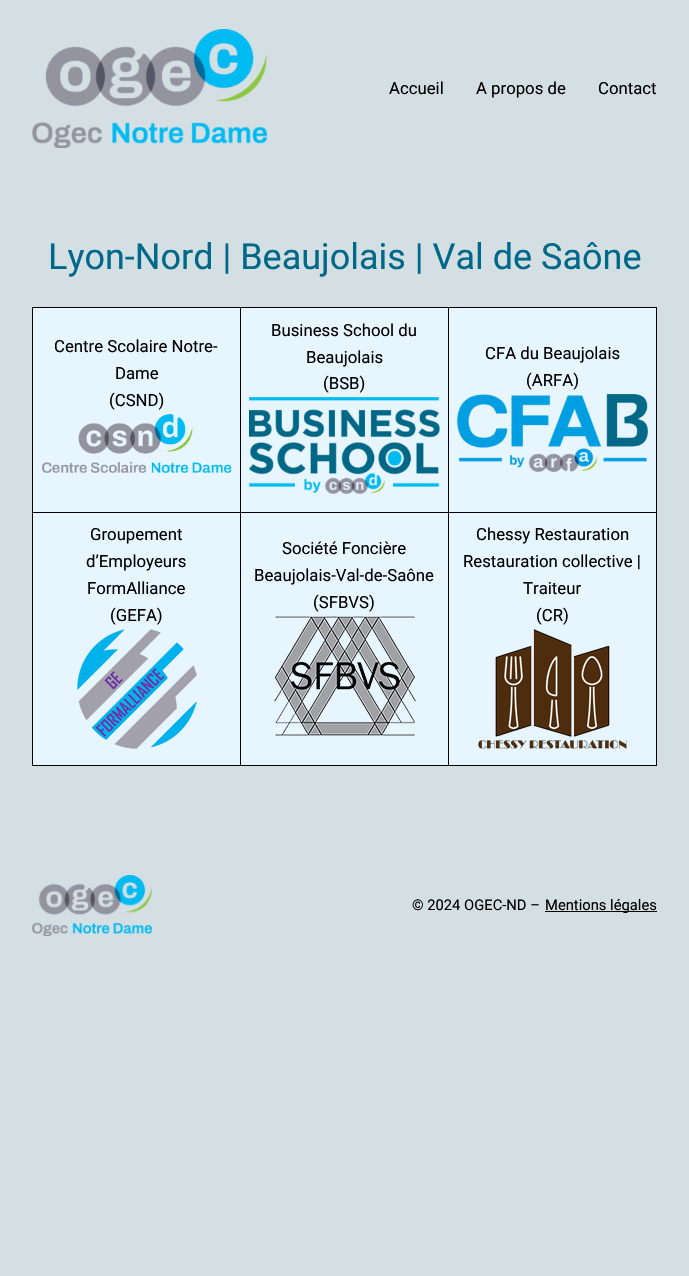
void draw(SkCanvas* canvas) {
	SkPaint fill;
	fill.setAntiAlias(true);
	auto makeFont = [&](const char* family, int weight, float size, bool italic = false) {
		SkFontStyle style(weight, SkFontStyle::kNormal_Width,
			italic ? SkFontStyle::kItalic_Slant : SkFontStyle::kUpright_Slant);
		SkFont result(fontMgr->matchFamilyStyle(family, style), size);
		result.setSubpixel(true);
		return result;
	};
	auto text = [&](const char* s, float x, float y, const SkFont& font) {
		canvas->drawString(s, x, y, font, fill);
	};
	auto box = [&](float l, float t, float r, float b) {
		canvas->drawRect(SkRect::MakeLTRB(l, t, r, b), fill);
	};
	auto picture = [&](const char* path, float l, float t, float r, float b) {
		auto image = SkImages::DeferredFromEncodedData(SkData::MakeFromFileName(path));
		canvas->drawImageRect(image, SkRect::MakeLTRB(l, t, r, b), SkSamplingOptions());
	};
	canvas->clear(0xFFD4DFE3);
	picture("image0.png", 32, 29, 267, 148);
	fill.setColor(0xFFE7F5FE);
	box(33, 308, 656, 765);
	fill.setColor(0xFF000000);
	box(448, 307, 657, 308);
	box(448, 512, 657, 513);
	box(656, 512, 657, 766);
	box(448, 765, 657, 766);
	box(448, 512, 449, 766);
	box(240, 512, 449, 513);
	box(448, 307, 449, 513);
	box(240, 307, 449, 308);
	box(240, 765, 449, 766);
	box(240, 512, 241, 766);
	box(32, 512, 241, 513);
	box(240, 307, 241, 513);
	box(32, 307, 241, 308);
	box(32, 765, 241, 766);
	box(32, 512, 33, 766);
	box(32, 307, 33, 513);
	picture("image1.png", 41, 414, 232, 473);
	picture("image2.png", 249, 397, 440, 494);
	box(656, 307, 657, 513);
	picture("image3.png", 457, 394, 648, 472);
	picture("image4.png", 77, 629, 197, 749);
	picture("image5.png", 274, 616, 416, 736);
	picture("image6.png", 478, 629, 627, 749);
	picture("image7.png", 32, 875, 152, 936);
	box(545, 911, 657, 912);
	auto font1 = makeFont("Roboto", 400, 16.75f);
	text("Accueil", 389, 94, font1);
	text("A propos de", 476, 94, font1);
	text("Contact", 598, 94, font1);
	auto font2 = makeFont("Roboto", 400, 36);
	fill.setColor(0xFF006889);
	text("Lyon-Nord | Beaujolais | Val de Saône", 48, 269, font2);
	fill.setColor(0xFF000000);
	text("Centre Scolaire Notre-", 54, 352, font1);
	text("Dame", 115, 379, font1);
	text("(CSND)", 109, 406, font1);
	text("Business School du", 271, 336, font1);
	text("Beaujolais", 306, 363, font1);
	text("(BSB)", 323, 389, font1);
	text("CFA du Beaujolais", 485, 359, font1);
	text("(ARFA)", 526, 386, font1);
	text("Groupement", 90, 540, font1);
	text("d’Employeurs", 86, 567, font1);
	text("FormAlliance", 87, 594, font1);
	text("(GEFA)", 110, 621, font1);
	text("Société Foncière", 282, 554, font1);
	text("Beaujolais-Val-de-Saône", 254, 581, font1);
	text("(SFBVS)", 313, 608, font1);
	text("Chessy Restauration", 476, 540, font1);
	text("Restauration collective |", 463, 567, font1);
	text("Traiteur", 523, 594, font1);
	text("(CR)", 536, 621, font1);
	auto font3 = makeFont("Roboto", 400, 14.75f);
	text("© 2024 OGEC-ND –", 412, 910, font3);
	text("Mentions légales", 545, 910, font3);
}
